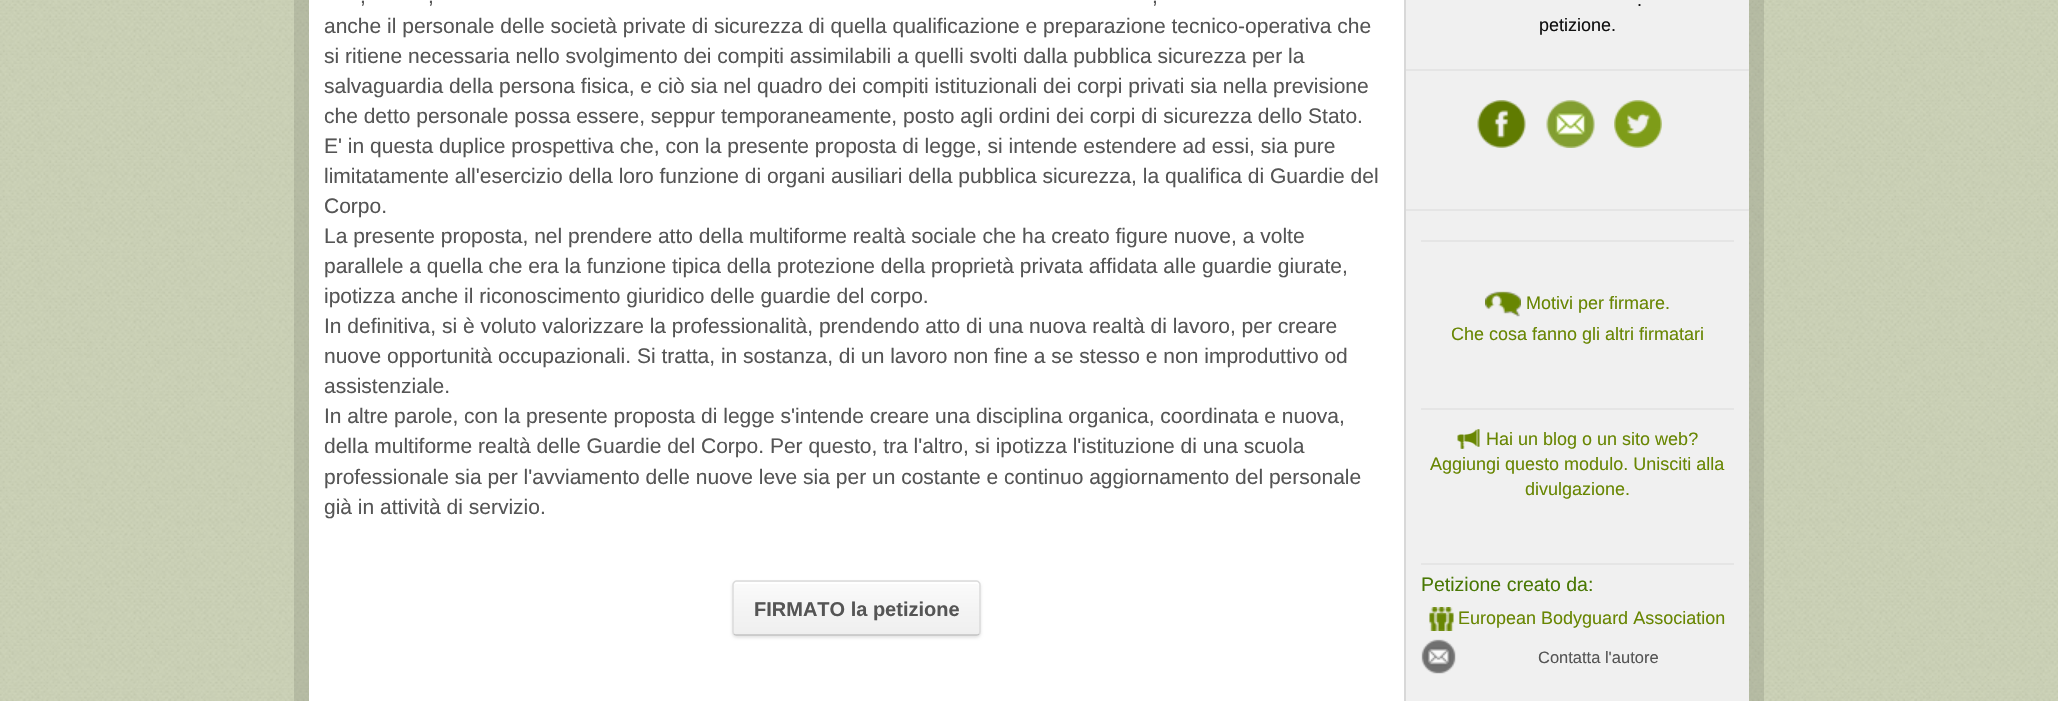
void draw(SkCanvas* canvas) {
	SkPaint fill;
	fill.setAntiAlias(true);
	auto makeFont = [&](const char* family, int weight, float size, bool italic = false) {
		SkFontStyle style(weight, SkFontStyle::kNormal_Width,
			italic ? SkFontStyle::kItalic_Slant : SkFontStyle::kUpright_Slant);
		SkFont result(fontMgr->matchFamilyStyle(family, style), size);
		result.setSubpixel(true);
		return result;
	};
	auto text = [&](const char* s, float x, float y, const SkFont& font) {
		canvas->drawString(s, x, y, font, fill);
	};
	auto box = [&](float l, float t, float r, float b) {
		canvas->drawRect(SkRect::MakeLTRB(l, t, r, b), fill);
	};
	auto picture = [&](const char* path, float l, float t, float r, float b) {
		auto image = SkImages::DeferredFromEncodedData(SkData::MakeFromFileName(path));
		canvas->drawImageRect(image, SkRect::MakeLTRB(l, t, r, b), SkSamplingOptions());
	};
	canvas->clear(0xFFFFFFFF);
	picture("image0.png", 0, 0, 2058, 701);
	fill.setStyle(SkPaint::kStroke_Style);
	fill.setStrokeWidth(15);
	fill.setColor(0x1A000000);
	canvas->drawRect(SkRect::MakeLTRB(301.5f, -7.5f, 1756.5f, 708.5f), fill);
	fill.setStyle(SkPaint::kFill_Style);
	fill.setColor(0xFFFFFFFF);
	box(309, 0, 1404, 701);
	fill.setColor(0xFFD8D8D8);
	box(1404, 0, 1406, 701);
	fill.setColor(0x1A000000);
	fill.setMaskFilter(SkMaskFilter::MakeBlur(kNormal_SkBlurStyle, 1.5f));
	canvas->drawRoundRect(SkRect::MakeLTRB(732, 582, 981, 638), 5, 5, fill);
	fill.setMaskFilter(nullptr);
	canvas->save();
	canvas->clipPath(SkPathBuilder().moveTo(737, 581).lineTo(976, 581).cubicTo(979, 581, 981, 583, 981, 586).lineTo(981, 631).cubicTo(981, 634, 979, 636, 976, 636).lineTo(737, 636).cubicTo(734, 636, 732, 634, 732, 631).lineTo(732, 586).cubicTo(732, 583, 734, 581, 737, 581).close().detach(), true);
	{
		const SkColor colors[] = {0xFFFBFBFB, 0xFFF4F4F4, 0xFFEFEFEF};
		const float stops[] = {0, 0.5f, 1};
		const SkPoint ends[] = {{857, 582}, {857, 635}};
		fill.setShader(SkGradientShader::MakeLinear(ends, colors, stops, 3, SkTileMode::kClamp));
		fill.setAlpha(255);
	}
	box(732, 582, 981, 635);
	canvas->restore();
	fill.setShader(nullptr);
	fill.setColor(0xFFFFFFFF);
	canvas->drawPath(SkPathBuilder().moveTo(736, 584).lineTo(976, 584).cubicTo(978, 584, 980, 585, 980, 586).cubicTo(980, 584, 979, 582, 977, 582).lineTo(737, 582).cubicTo(735, 582, 734, 584, 734, 586).cubicTo(734, 585, 735, 584, 736, 584).close().detach(), fill);
	fill.setStyle(SkPaint::kStroke_Style);
	fill.setStrokeWidth(1.5f);
	fill.setColor(0xFFC3C3C3);
	canvas->drawPath(SkPathBuilder().moveTo(979, 634).cubicTo(978.5f, 635, 977.5f, 635, 976.5f, 635).lineTo(736.5f, 635).cubicTo(735.5f, 635, 734.5f, 635, 734, 634).detach(), fill);
	fill.setColor(0xFFDBDBDB);
	canvas->drawPath(SkPathBuilder().moveTo(734, 634).cubicTo(733, 633.5f, 733, 632.5f, 733, 631.5f).lineTo(733, 585).cubicTo(733, 584, 733, 583, 734, 582.5f).cubicTo(734.5f, 581.5f, 735.5f, 581, 736.5f, 581).lineTo(976.5f, 581).cubicTo(977.5f, 581, 978.5f, 581.5f, 979, 582.5f).cubicTo(980, 583, 980, 584, 980, 585).lineTo(980, 631.5f).cubicTo(980, 632.5f, 980, 633.5f, 979, 634).detach(), fill);
	fill.setStyle(SkPaint::kFill_Style);
	fill.setColor(0xFFF0F0F0);
	box(1406, 0, 1749, 701);
	fill.setColor(0xFFE5E5E5);
	box(1406, 69, 1749, 71);
	picture("image1.png", 1477, 100, 1526, 148);
	picture("image2.png", 1546, 100, 1595, 148);
	picture("image3.png", 1614, 100, 1662, 148);
	box(1406, 209, 1749, 211);
	box(1421, 240, 1734, 242);
	picture("image4.png", 1485, 291, 1521, 317);
	box(1421, 408, 1734, 410);
	picture("image5.png", 1457, 429, 1480, 449);
	box(1421, 563, 1734, 565);
	picture("image6.png", 1429, 607, 1454, 631);
	picture("image7.png", 1421, 639, 1456, 674);
	auto font1 = makeFont("Liberation Sans", 400, 21);
	fill.setColor(0xFF555555);
	text(",", 360, 3, font1);
	text(",", 428, 3, font1);
	text(",", 1152, 3, font1);
	text("anche il personale delle società private di sicurezza di quella qualificazione e preparazione tecnico-operativa che", 324, 33, font1);
	text("si ritiene necessaria nello svolgimento dei compiti assimilabili a quelli svolti dalla pubblica sicurezza per la", 324, 63, font1);
	text("salvaguardia della persona fisica, e ciò sia nel quadro dei compiti istituzionali dei corpi privati sia nella previsione", 324, 93, font1);
	text("che detto personale possa essere, seppur temporaneamente, posto agli ordini dei corpi di sicurezza dello Stato.", 324, 123, font1);
	text("E' in questa duplice prospettiva che, con la presente proposta di legge, si intende estendere ad essi, sia pure", 324, 153, font1);
	text("limitatamente all'esercizio della loro funzione di organi ausiliari della pubblica sicurezza, la qualifica di Guardie del", 324, 183, font1);
	text("Corpo.", 324, 213, font1);
	text("La presente proposta, nel prendere atto della multiforme realtà sociale che ha creato figure nuove, a volte", 324, 243, font1);
	text("parallele a quella che era la funzione tipica della protezione della proprietà privata affidata alle guardie giurate,", 324, 273, font1);
	text("ipotizza anche il riconoscimento giuridico delle guardie del corpo.", 324, 303, font1);
	text("In definitiva, si è voluto valorizzare la professionalità, prendendo atto di una nuova realtà di lavoro, per creare", 324, 333, font1);
	text("nuove opportunità occupazionali. Si tratta, in sostanza, di un lavoro non fine a se stesso e non improduttivo od", 324, 363, font1);
	text("assistenziale.", 324, 393, font1);
	text("In altre parole, con la presente proposta di legge s'intende creare una disciplina organica, coordinata e nuova,", 324, 423, font1);
	text("della multiforme realtà delle Guardie del Corpo. Per questo, tra l'altro, si ipotizza l'istituzione di una scuola", 324, 453, font1);
	text("professionale sia per l'avviamento delle nuove leve sia per un costante e continuo aggiornamento del personale", 324, 484, font1);
	text("già in attività di servizio.", 324, 514, font1);
	auto font2 = makeFont("Liberation Sans", 700, 20);
	text("FIRMATO la petizione", 754, 616, font2);
	auto font3 = makeFont("Liberation Sans", 400, 18);
	fill.setColor(0xFF111111);
	text(".", 1637, 6, font3);
	text("petizione.", 1539, 31, font3);
	fill.setColor(0xFF688602);
	text("Motivi per firmare.", 1526, 309, font3);
	text("Che cosa fanno gli altri firmatari", 1451, 340, font3);
	text("Hai un blog o un sito web?", 1486, 445, font3);
	text("Aggiungi questo modulo. Unisciti alla", 1430, 470, font3);
	text("divulgazione.", 1525, 495, font3);
	auto font4 = makeFont("Liberation Sans", 400, 19.5f);
	fill.setColor(0xFF497804);
	text("Petizione creato da:", 1421, 591, font4);
	fill.setColor(0xFF688602);
	text("European Bodyguard Association", 1458, 624, font3);
	auto font5 = makeFont("Liberation Sans", 400, 16.5f);
	fill.setColor(0xFF555555);
	text("Contatta l'autore", 1538, 663, font5);
}
